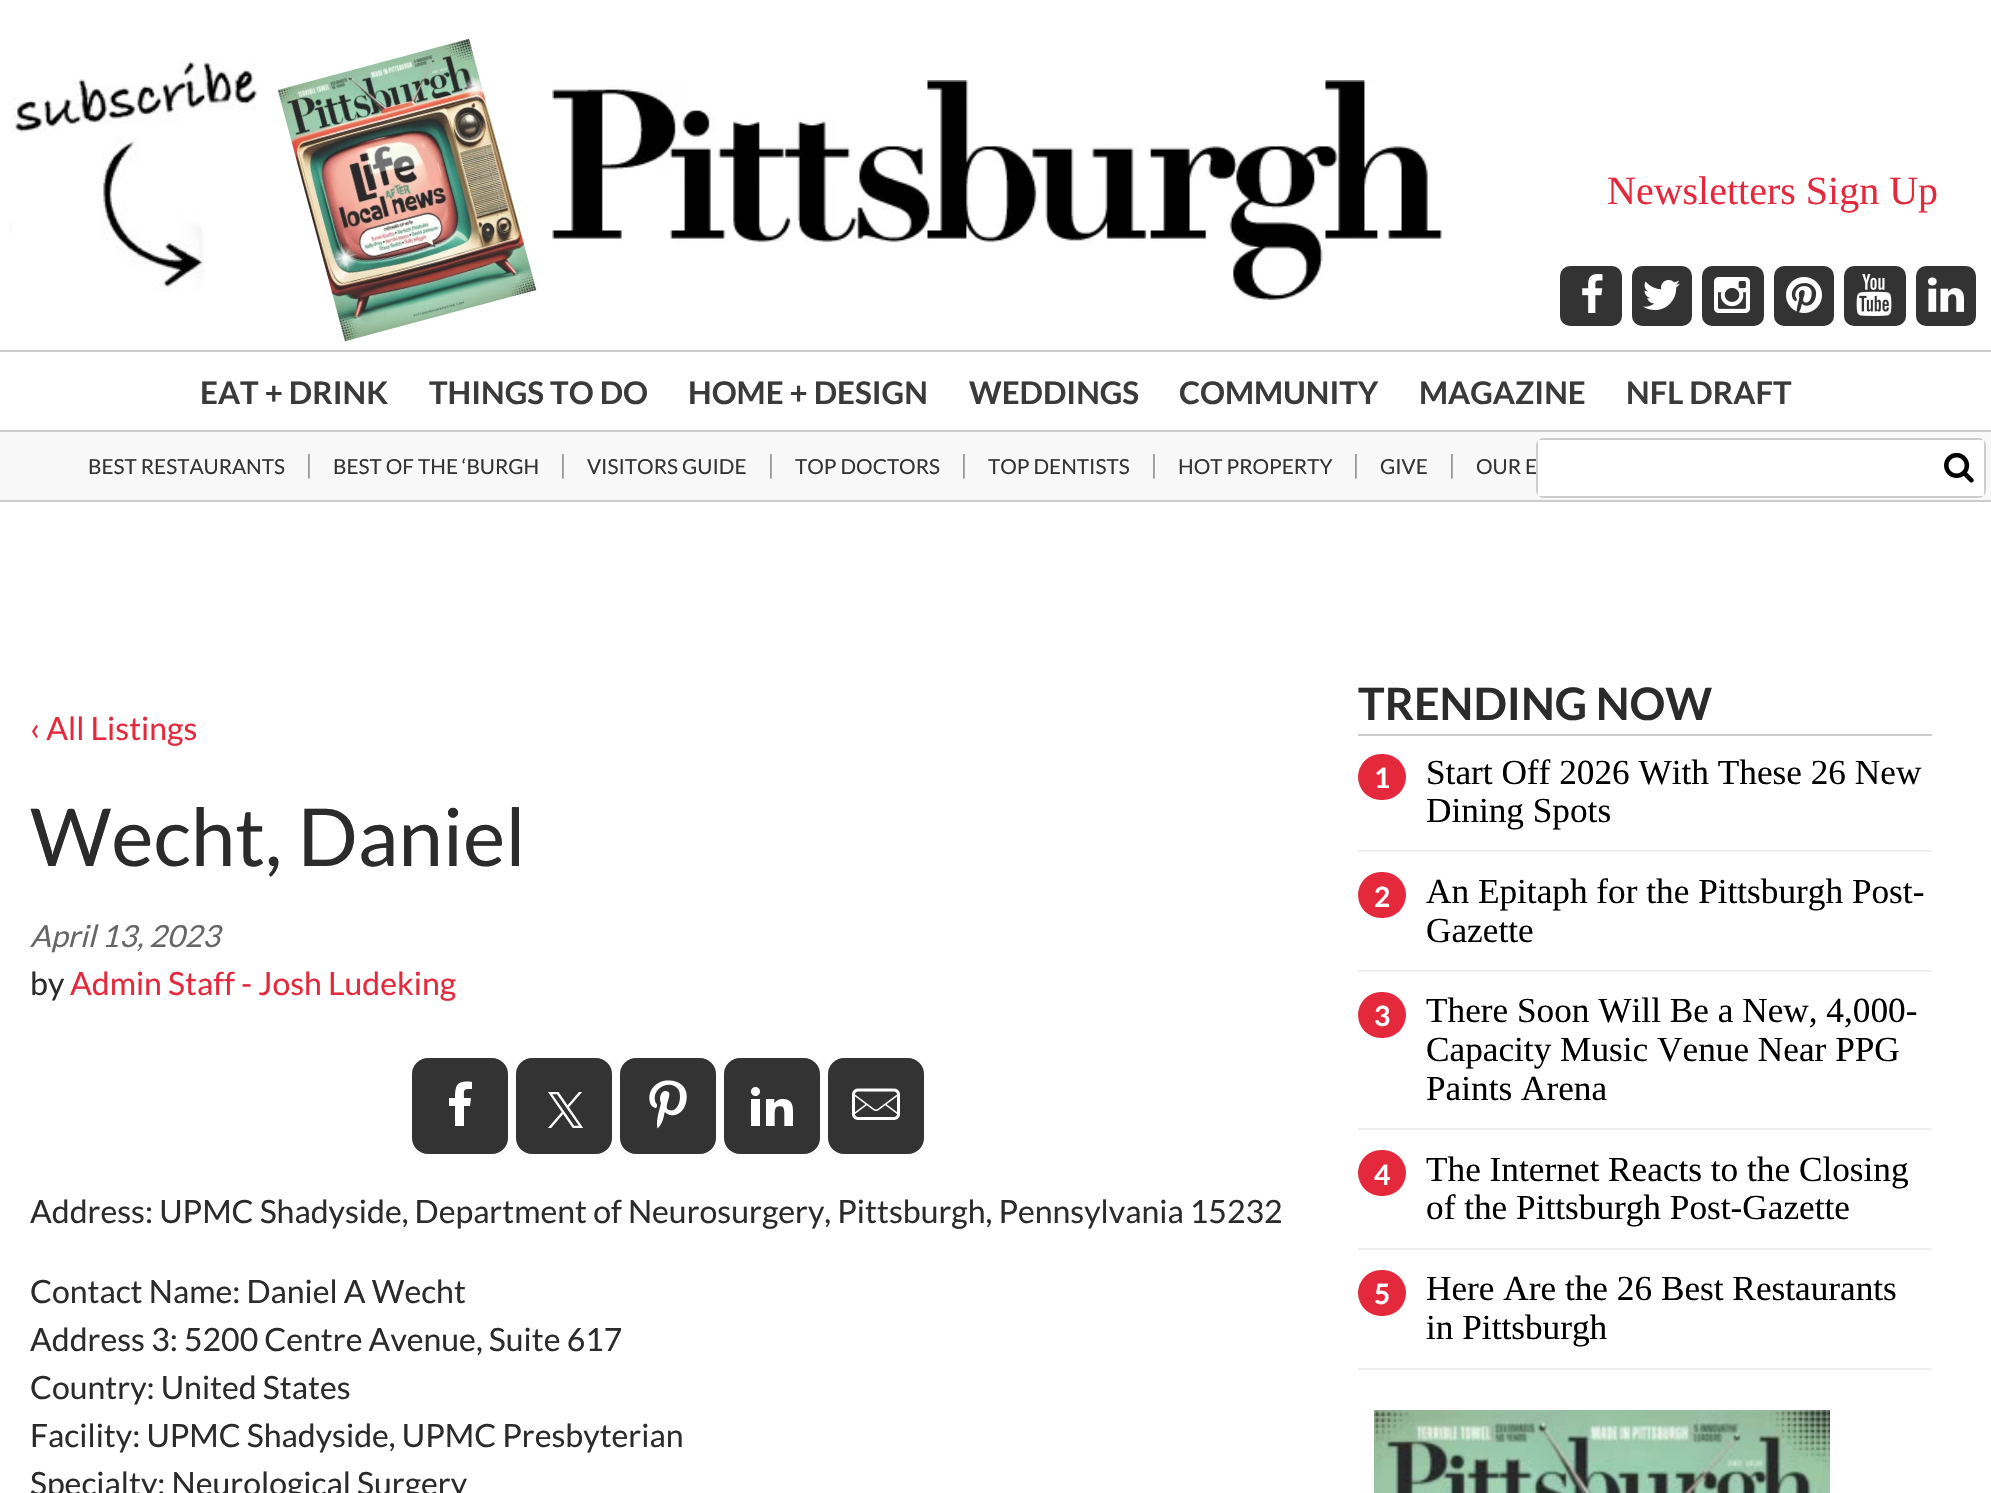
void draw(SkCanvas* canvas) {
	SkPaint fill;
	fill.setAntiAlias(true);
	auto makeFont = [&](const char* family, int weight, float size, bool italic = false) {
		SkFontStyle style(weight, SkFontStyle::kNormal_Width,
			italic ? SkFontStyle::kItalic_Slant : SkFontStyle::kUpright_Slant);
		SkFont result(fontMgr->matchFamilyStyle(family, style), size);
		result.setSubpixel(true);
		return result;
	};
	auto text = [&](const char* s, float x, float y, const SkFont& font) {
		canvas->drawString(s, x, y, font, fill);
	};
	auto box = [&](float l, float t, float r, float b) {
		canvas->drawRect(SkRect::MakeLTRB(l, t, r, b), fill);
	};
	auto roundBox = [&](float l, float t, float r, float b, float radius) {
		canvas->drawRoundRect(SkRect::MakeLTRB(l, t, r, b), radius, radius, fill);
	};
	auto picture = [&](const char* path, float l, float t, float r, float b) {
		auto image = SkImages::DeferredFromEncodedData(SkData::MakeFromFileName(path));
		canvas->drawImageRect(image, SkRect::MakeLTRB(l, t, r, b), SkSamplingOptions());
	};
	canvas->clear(0xFFFFFFFF);
	picture("image0.png", 9, 60, 257, 292);
	picture("image1.png", 277, 38, 537, 342);
	picture("image2.png", 552, 80, 1442, 300);
	fill.setColor(0xFF333333);
	roundBox(1560, 266, 1622, 326, 10);
	picture("image3.png", 1582, 274, 1603, 313);
	roundBox(1632, 266, 1692, 326, 10);
	picture("image4.png", 1643, 280, 1680, 310);
	roundBox(1702, 266, 1764, 326, 10);
	picture("image5.png", 1714, 277, 1750, 313);
	roundBox(1774, 266, 1834, 326, 10);
	picture("image6.png", 1786, 277, 1822, 313);
	roundBox(1844, 266, 1906, 326, 10);
	picture("image7.png", 1856, 274, 1892, 316);
	roundBox(1916, 266, 1976, 326, 10);
	picture("image8.png", 1928, 277, 1964, 312);
	fill.setColor(0xFFCCCCCC);
	box(0, 350, 1991, 352);
	box(0, 430, 1991, 432);
	fill.setColor(0xFFF8F8F8);
	box(0, 432, 1991, 500);
	fill.setColor(0xFFCCCCCC);
	box(0, 500, 1991, 502);
	fill.setStyle(SkPaint::kStroke_Style);
	fill.setStrokeWidth(2);
	canvas->drawRoundRect(SkRect::MakeLTRB(1537, 439, 1985, 497), 7, 7, fill);
	fill.setStyle(SkPaint::kFill_Style);
	fill.setColor(0xE6FFFFFF);
	box(1538, 440, 1984, 496);
	picture("image9.png", 1944, 452, 1974, 483);
	fill.setColor(0xFF333333);
	roundBox(412, 1058, 508, 1154, 16);
	fill.setColor(0xFFFFFFFF);
	canvas->drawPath(SkPathBuilder().moveTo(472, 1082).lineTo(472, 1089).cubicTo(463, 1089, 464, 1089, 464, 1098).lineTo(471, 1098).lineTo(470, 1106).lineTo(464, 1106).lineTo(464, 1126).lineTo(455, 1126).lineTo(455, 1106).lineTo(449, 1106).lineTo(449, 1098).lineTo(455, 1098).cubicTo(455, 1085, 457, 1080, 472, 1082).close().detach(), fill);
	fill.setColor(0xFF333333);
	roundBox(516, 1058, 612, 1154, 16);
	picture("image10.png", 548, 1092, 583, 1128);
	roundBox(620, 1058, 716, 1154, 16);
	picture("image11.png", 649, 1080, 687, 1129);
	roundBox(724, 1058, 820, 1154, 16);
	picture("image12.png", 751, 1087, 793, 1126);
	roundBox(828, 1058, 924, 1154, 16);
	picture("image13.png", 852, 1088, 900, 1120);
	fill.setColor(0xFFCCCCCC);
	box(1358, 734, 1932, 736);
	fill.setColor(0xFFEFEFEF);
	box(1358, 850, 1932, 852);
	fill.setColor(0xFFE5293D);
	roundBox(1358, 754, 1406, 800, 23);
	fill.setColor(0xFFEFEFEF);
	box(1358, 970, 1932, 972);
	fill.setColor(0xFFE5293D);
	roundBox(1358, 872, 1406, 918, 23);
	fill.setColor(0xFFEFEFEF);
	box(1358, 1128, 1932, 1130);
	fill.setColor(0xFFE5293D);
	roundBox(1358, 992, 1406, 1038, 23);
	fill.setColor(0xFFEFEFEF);
	box(1358, 1248, 1932, 1250);
	fill.setColor(0xFFE5293D);
	roundBox(1358, 1150, 1406, 1196, 23);
	fill.setColor(0xFFEFEFEF);
	box(1358, 1368, 1932, 1370);
	fill.setColor(0xFFE5293D);
	roundBox(1358, 1270, 1406, 1316, 23);
	picture("image14.png", 1374, 1410, 1830, 1493);
	auto font1 = makeFont("Liberation Serif", 400, 40);
	text("Newsletters Sign Up", 1607, 204, font1);
	auto font2 = makeFont("Lato", 700, 31.25f);
	fill.setColor(0xFF3A3A3A);
	text("EAT + DRINK", 200, 404, font2);
	text("THINGS TO DO", 429, 404, font2);
	text("HOME + DESIGN", 688, 404, font2);
	text("WEDDINGS", 969, 404, font2);
	text("COMMUNITY", 1179, 404, font2);
	text("MAGAZINE", 1419, 404, font2);
	text("NFL DRAFT", 1626, 404, font2);
	auto font3 = makeFont("Lato", 400, 20.75f);
	fill.setColor(0xFF333333);
	text("BEST RESTAURANTS", 88, 474, font3);
	auto font4 = makeFont("Lato", 400, 26);
	fill.setColor(0xFF9B9B9B);
	text("|", 305, 474, font4);
	fill.setColor(0xFF333333);
	text("BEST OF THE ‘BURGH", 333, 474, font3);
	fill.setColor(0xFF9B9B9B);
	text("|", 559, 474, font4);
	fill.setColor(0xFF333333);
	text("VISITORS GUIDE", 587, 474, font3);
	fill.setColor(0xFF9B9B9B);
	text("|", 767, 474, font4);
	fill.setColor(0xFF333333);
	text("TOP DOCTORS", 795, 474, font3);
	fill.setColor(0xFF9B9B9B);
	text("|", 960, 474, font4);
	fill.setColor(0xFF333333);
	text("TOP DENTISTS", 988, 474, font3);
	fill.setColor(0xFF9B9B9B);
	text("|", 1150, 474, font4);
	fill.setColor(0xFF333333);
	text("HOT PROPERTY", 1178, 474, font3);
	fill.setColor(0xFF9B9B9B);
	text("|", 1352, 474, font4);
	fill.setColor(0xFF333333);
	text("GIVE", 1380, 474, font3);
	fill.setColor(0xFF9B9B9B);
	text("|", 1448, 474, font4);
	fill.setColor(0xFF333333);
	text("OUR E", 1476, 474, font3);
	auto font5 = makeFont("Lato", 400, 32);
	fill.setColor(0xFFE5293D);
	text("‹ All Listings", 30, 740, font5);
	auto font6 = makeFont("Lato", 400, 80);
	fill.setColor(0xFF2B2B2B);
	text("Wecht, Daniel", 30, 866, font6);
	auto font7 = makeFont("Lato", 400, 30.5f, true);
	fill.setColor(0xFF666666);
	text("April 13, 2023", 30, 947, font7);
	fill.setColor(0xFF2B2B2B);
	text("by", 30, 995, font5);
	fill.setColor(0xFFE5293D);
	text("Admin Staff - Josh Ludeking", 70, 995, font5);
	fill.setColor(0xFF2B2B2B);
	text("Address: UPMC Shadyside, Department of Neurosurgery, Pittsburgh, Pennsylvania 15232", 30, 1223, font5);
	text("Contact Name: Daniel A Wecht", 30, 1303, font5);
	text("Address 3: 5200 Centre Avenue, Suite 617", 30, 1351, font5);
	text("Country: United States", 30, 1399, font5);
	text("Facility: UPMC Shadyside, UPMC Presbyterian", 30, 1447, font5);
	text("Specialty: Neurological Surgery", 30, 1495, font5);
	auto font8 = makeFont("Lato", 700, 44.75f);
	text("TRENDING NOW", 1358, 720, font8);
	auto font9 = makeFont("Lato", 700, 28);
	fill.setColor(0xFFFFFFFF);
	text("1", 1374, 788, font9);
	auto font10 = makeFont("Liberation Serif", 400, 35.25f);
	fill.setColor(0xFF000000);
	text("Start Off 2026 With These 26 New", 1426, 784, font10);
	text("Dining Spots", 1426, 822, font10);
	fill.setColor(0xFFFFFFFF);
	text("2", 1374, 907, font9);
	fill.setColor(0xFF000000);
	text("An Epitaph for the Pittsburgh Post-", 1426, 903, font10);
	text("Gazette", 1426, 942, font10);
	fill.setColor(0xFFFFFFFF);
	text("3", 1374, 1026, font9);
	fill.setColor(0xFF000000);
	text("There Soon Will Be a New, 4,000-", 1426, 1022, font10);
	text("Capacity Music Venue Near PPG", 1426, 1061, font10);
	text("Paints Arena", 1426, 1100, font10);
	fill.setColor(0xFFFFFFFF);
	text("4", 1374, 1185, font9);
	fill.setColor(0xFF000000);
	text("The Internet Reacts to the Closing", 1426, 1181, font10);
	text("of the Pittsburgh Post-Gazette", 1426, 1219, font10);
	fill.setColor(0xFFFFFFFF);
	text("5", 1374, 1304, font9);
	fill.setColor(0xFF000000);
	text("Here Are the 26 Best Restaurants", 1426, 1300, font10);
	text("in Pittsburgh", 1426, 1339, font10);
}
